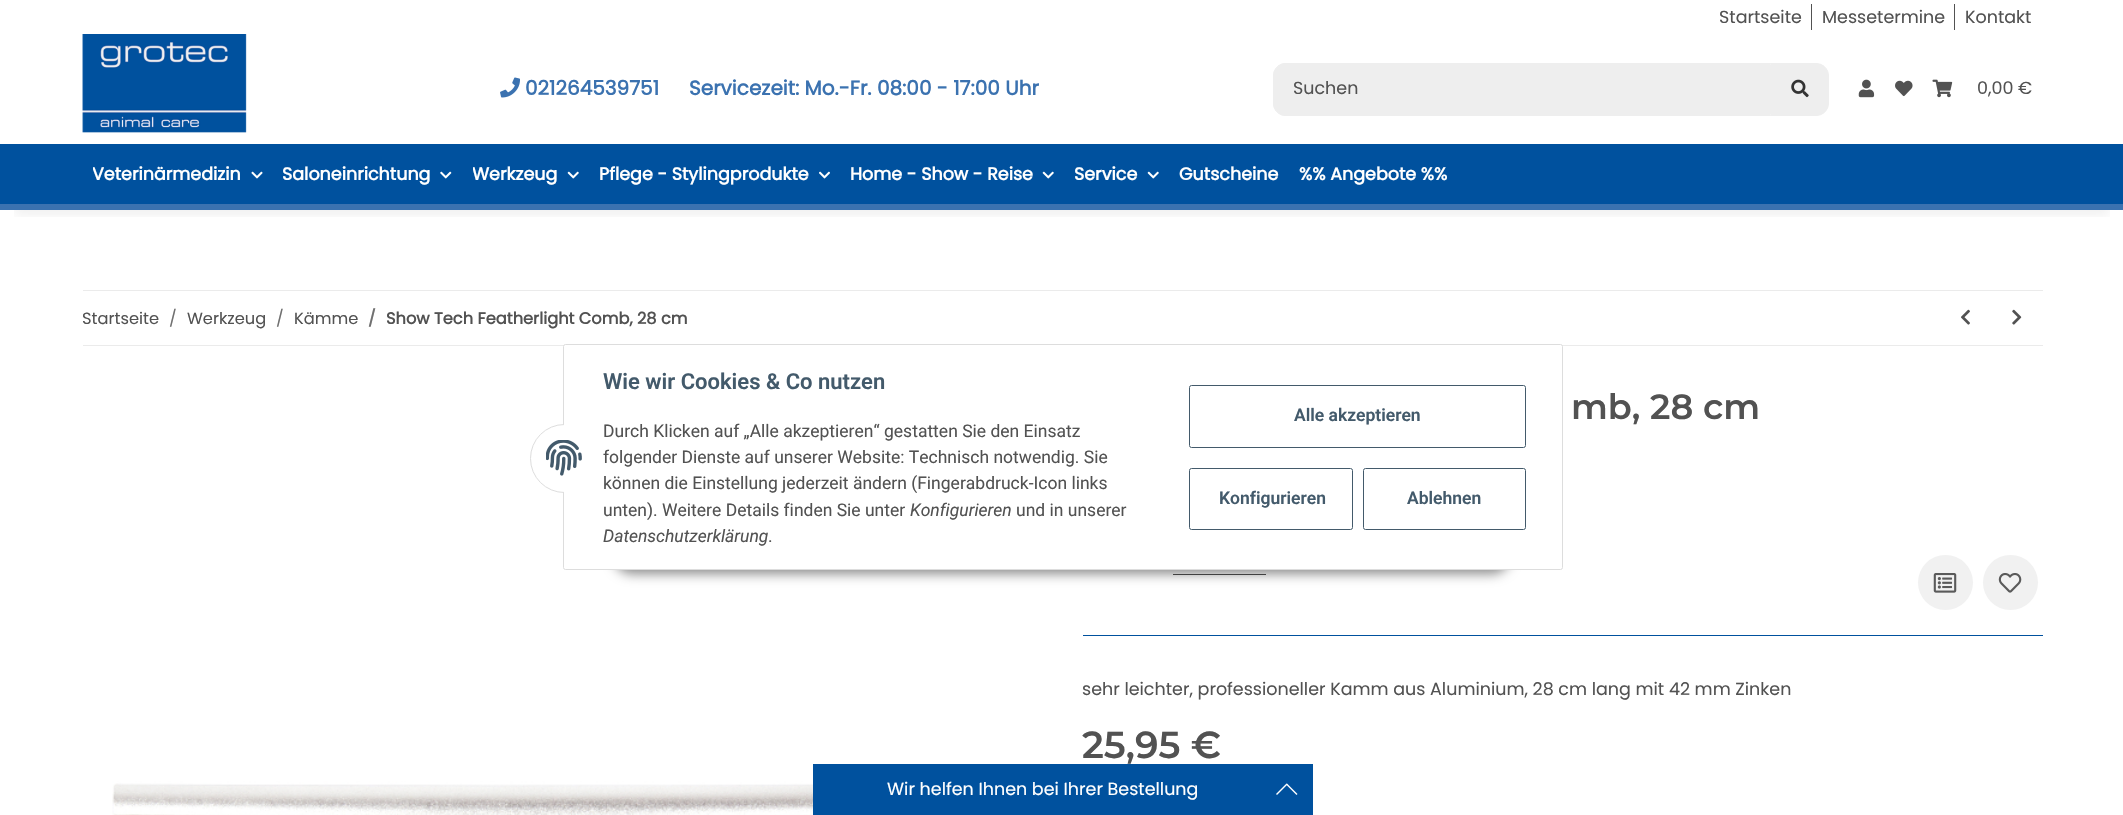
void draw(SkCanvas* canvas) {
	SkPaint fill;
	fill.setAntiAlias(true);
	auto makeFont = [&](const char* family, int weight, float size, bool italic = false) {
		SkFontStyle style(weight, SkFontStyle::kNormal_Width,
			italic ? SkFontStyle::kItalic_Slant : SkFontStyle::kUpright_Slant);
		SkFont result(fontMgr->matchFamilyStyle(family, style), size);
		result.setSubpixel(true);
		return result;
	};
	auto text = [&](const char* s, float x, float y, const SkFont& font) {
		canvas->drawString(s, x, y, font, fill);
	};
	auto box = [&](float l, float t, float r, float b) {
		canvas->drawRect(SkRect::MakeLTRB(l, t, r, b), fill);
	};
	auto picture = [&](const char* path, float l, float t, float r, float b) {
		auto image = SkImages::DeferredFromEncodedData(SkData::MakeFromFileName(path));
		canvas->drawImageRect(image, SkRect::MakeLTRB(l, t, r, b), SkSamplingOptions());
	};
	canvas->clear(0xFFFFFFFF);
	fill.setColor(0xFF525252);
	box(1811, 4, 1812, 30);
	box(1954, 4, 1955, 30);
	canvas->save();
	canvas->clipRect(SkRect::MakeLTRB(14, 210, 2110, 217));
	fill.setColor(0x0F000000);
	fill.setMaskFilter(SkMaskFilter::MakeBlur(kNormal_SkBlurStyle, 5.5f));
	canvas->drawRect(SkRect::MakeLTRB(15, 69, 2109, 215), fill);
	fill.setMaskFilter(nullptr);
	canvas->restore();
	picture("image0.png", 82, 34, 247, 133);
	picture("image1.png", 500, 77, 520, 98);
	fill.setColor(0xFFEEEEEE);
	canvas->drawPath(SkPathBuilder().moveTo(1285, 64).lineTo(1770, 64).cubicTo(1770.5f, 64, 1771, 64.5f, 1771, 65).lineTo(1771, 114).cubicTo(1771, 114.5f, 1770.5f, 115, 1770, 115).lineTo(1285, 115).cubicTo(1279, 115, 1274, 110, 1274, 104).lineTo(1274, 75).cubicTo(1274, 69, 1279, 64, 1285, 64).close().detach(), fill);
	fill.setStyle(SkPaint::kStroke_Style);
	fill.setStrokeWidth(1);
	canvas->drawPath(SkPathBuilder().moveTo(1286, 63.5f).lineTo(1770.5f, 63.5f).cubicTo(1771.5f, 63.5f, 1772.5f, 64.5f, 1772.5f, 65.5f).lineTo(1772.5f, 113.5f).cubicTo(1772.5f, 114.5f, 1771.5f, 115.5f, 1770.5f, 115.5f).lineTo(1286, 115.5f).cubicTo(1279, 115.5f, 1273.5f, 110, 1273.5f, 103).lineTo(1273.5f, 76).cubicTo(1273.5f, 69, 1279, 63.5f, 1286, 63.5f).close().detach(), fill);
	canvas->drawPath(SkPathBuilder().moveTo(1286, 63.5f).lineTo(1770.5f, 63.5f).cubicTo(1771.5f, 63.5f, 1772.5f, 64.5f, 1772.5f, 65.5f).lineTo(1772.5f, 113.5f).cubicTo(1772.5f, 114.5f, 1771.5f, 115.5f, 1770.5f, 115.5f).lineTo(1286, 115.5f).cubicTo(1279, 115.5f, 1273.5f, 110, 1273.5f, 103).lineTo(1273.5f, 76).cubicTo(1273.5f, 69, 1279, 63.5f, 1286, 63.5f).close().detach(), fill);
	fill.setStyle(SkPaint::kFill_Style);
	canvas->drawPath(SkPathBuilder().moveTo(1771.5f, 63.5f).lineTo(1816, 63.5f).cubicTo(1823, 63.5f, 1828.5f, 69, 1828.5f, 76).lineTo(1828.5f, 103).cubicTo(1828.5f, 110, 1823, 115.5f, 1816, 115.5f).lineTo(1771.5f, 115.5f).close().detach(), fill);
	fill.setStyle(SkPaint::kStroke_Style);
	canvas->drawPath(SkPathBuilder().moveTo(1771.5f, 63.5f).lineTo(1816, 63.5f).cubicTo(1823, 63.5f, 1828.5f, 69, 1828.5f, 76).lineTo(1828.5f, 103).cubicTo(1828.5f, 110, 1823, 115.5f, 1816, 115.5f).lineTo(1771.5f, 115.5f).close().detach(), fill);
	picture("image2.png", 1791, 79, 1809, 98);
	picture("image3.png", 1858, 79, 1875, 98);
	picture("image4.png", 1895, 80, 1913, 97);
	picture("image5.png", 1932, 79, 1953, 98);
	fill.setStyle(SkPaint::kFill_Style);
	fill.setColor(0xFF00519E);
	box(0, 144, 2123, 204);
	fill.setColor(0xFF3B72B0);
	box(0, 204, 2123, 210);
	picture("image6.png", 251, 171, 263, 179);
	picture("image7.png", 440, 171, 452, 179);
	picture("image8.png", 567, 171, 579, 179);
	picture("image9.png", 819, 171, 830, 179);
	picture("image8.png", 1042, 171, 1054, 179);
	picture("image8.png", 1147, 171, 1159, 179);
	fill.setColor(0xFFEBEBEB);
	box(83, 290, 2043, 291);
	box(83, 345, 2043, 346);
	picture("image10.png", 1961, 309, 1970, 325);
	picture("image11.png", 2012, 309, 2022, 325);
	fill.setColor(0xFF00519E);
	box(1083, 635, 2043, 636);
	fill.setColor(0xFF525252);
	box(1173, 574, 1266, 575);
	fill.setColor(0xFFF1F1F1);
	canvas->drawCircle(1945.5f, 582.5f, 27.5f, fill);
	picture("image12.png", 1933, 573, 1957, 593);
	canvas->drawCircle(2010.5f, 582.5f, 27.5f, fill);
	picture("image13.png", 1998, 573, 2022, 593);
	picture("image14.png", 112, 781, 813, 815);
	fill.setColor(0x73000000);
	fill.setMaskFilter(SkMaskFilter::MakeBlur(kNormal_SkBlurStyle, 6));
	canvas->drawRoundRect(SkRect::MakeLTRB(613, 534, 1511, 574), 20, 20, fill);
	fill.setMaskFilter(nullptr);
	fill.setColor(0xFFFFFFFF);
	canvas->drawRoundRect(SkRect::MakeLTRB(563.5f, 344.5f, 1562.5f, 569.5f), 2, 2, fill);
	fill.setStyle(SkPaint::kStroke_Style);
	fill.setColor(0xFFDDDDDD);
	canvas->drawRoundRect(SkRect::MakeLTRB(563.5f, 344.5f, 1562.5f, 569.5f), 2, 2, fill);
	fill.setStyle(SkPaint::kFill_Style);
	fill.setColor(0xFFFFFFFF);
	canvas->drawCircle(564.5f, 458.5f, 34, fill);
	fill.setStyle(SkPaint::kStroke_Style);
	fill.setColor(0xFFDDDDDD);
	canvas->drawCircle(564.5f, 458.5f, 34, fill);
	fill.setStyle(SkPaint::kFill_Style);
	fill.setColor(0xFFFFFFFF);
	box(564, 424, 599, 493);
	picture("image15.png", 546, 440, 582, 476);
	fill.setStyle(SkPaint::kStroke_Style);
	fill.setColor(0xFF435A6B);
	canvas->drawRoundRect(SkRect::MakeLTRB(1189.5f, 385.5f, 1525.5f, 447.5f), 2, 2, fill);
	canvas->drawRoundRect(SkRect::MakeLTRB(1189.5f, 468.5f, 1352.5f, 529.5f), 2, 2, fill);
	canvas->drawRoundRect(SkRect::MakeLTRB(1363.5f, 468.5f, 1525.5f, 529.5f), 2, 2, fill);
	fill.setStyle(SkPaint::kFill_Style);
	fill.setColor(0xFF00519E);
	box(813, 764, 1313, 815);
	fill.setColor(0xFFFFFFFF);
	canvas->drawPath(SkPathBuilder().moveTo(1276, 794).lineTo(1286.5f, 783.5f).lineTo(1287.5f, 784.5f).lineTo(1277, 795).close().detach(), fill);
	canvas->drawPath(SkPathBuilder().moveTo(1287, 783.5f).lineTo(1297.5f, 794).lineTo(1296.5f, 795).lineTo(1286, 784.5f).close().detach(), fill);
	auto font1 = makeFont("Poppins", 400, 17.5f);
	fill.setColor(0xFF525252);
	text("Startseite", 1719, 23, font1);
	text("Messetermine", 1822, 23, font1);
	text("Kontakt", 1965, 23, font1);
	auto font2 = makeFont("Poppins", 700, 20);
	fill.setColor(0xFF3B72B0);
	text("021264539751", 525, 95, font2);
	text("Servicezeit: Mo.-Fr. 08:00 - 17:00 Uhr", 689, 95, font2);
	fill.setColor(0xFF525252);
	text("Suchen", 1293, 94, font1);
	text("0,00 €", 1977, 94, font1);
	canvas->save();
	canvas->clipRect(SkRect::MakeLTRB(93, 164, 241, 186));
	auto font3 = makeFont("Poppins", 700, 17.5f);
	fill.setColor(0xFFFFFFFF);
	text("Veterinärmedizin", 92, 180, font3);
	canvas->restore();
	text("Saloneinrichtung", 282, 180, font3);
	canvas->save();
	canvas->clipRect(SkRect::MakeLTRB(473, 164, 558, 186));
	text("Werkzeug", 472, 180, font3);
	canvas->restore();
	text("Pflege - Stylingprodukte", 599, 180, font3);
	text("Home - Show - Reise", 850, 180, font3);
	text("Service", 1074, 180, font3);
	text("Gutscheine", 1179, 180, font3);
	text("%% Angebote %%", 1299, 180, font3);
	auto font4 = makeFont("Poppins", 400, 16.25f);
	fill.setColor(0xFF525252);
	text("Startseite", 82, 324, font4);
	fill.setColor(0xFF707070);
	text("/", 169, 324, font4);
	fill.setColor(0xFF525252);
	text("Werkzeug", 187, 324, font4);
	fill.setColor(0xFF707070);
	text("/", 276, 324, font4);
	fill.setColor(0xFF525252);
	text("Kämme", 294, 324, font4);
	auto font5 = makeFont("Poppins", 700, 16.25f);
	fill.setColor(0xFF707070);
	text("/", 368, 324, font5);
	fill.setColor(0xFF525252);
	text("Show Tech Featherlight Comb, 28 cm", 386, 324, font5);
	auto font6 = makeFont("Montserrat", 600, 35);
	text("mb, 28 cm", 1571, 419, font6);
	text("sehr leichter, professioneller Kamm aus Aluminium, 28 cm lang mit 42 mm Zinken", 1082, 695, font1);
	auto font7 = makeFont("Montserrat", 600, 37.5f);
	text("25,95 €", 1082, 758, font7);
	auto font8 = makeFont("Roboto", 600, 22);
	fill.setColor(0xFF435A6B);
	text("Wie wir Cookies & Co nutzen", 603, 389, font8);
	auto font9 = makeFont("Roboto", 400, 17.5f);
	fill.setColor(0xFF525252);
	text("Durch Klicken auf „Alle akzeptieren“ gestatten Sie den Einsatz", 603, 437, font9);
	text("folgender Dienste auf unserer Website: Technisch notwendig. Sie", 603, 463, font9);
	text("können die Einstellung jederzeit ändern (Fingerabdruck-Icon links", 603, 489, font9);
	text("unten). Weitere Details finden Sie unter", 603, 516, font9);
	auto font10 = makeFont("Roboto", 400, 17.5f, true);
	text("Konfigurieren", 910, 516, font10);
	text("und in unserer", 1016, 516, font9);
	text("Datenschutzerklärung", 603, 542, font10);
	text(".", 768, 542, font9);
	auto font11 = makeFont("Roboto", 600, 17.5f);
	fill.setColor(0xFF435A6B);
	text("Alle akzeptieren", 1294, 421, font11);
	text("Konfigurieren", 1219, 504, font11);
	text("Ablehnen", 1407, 504, font11);
	fill.setColor(0xFFFFFFFF);
	text("Wir helfen Ihnen bei Ihrer Bestellung", 887, 795, font1);
}
